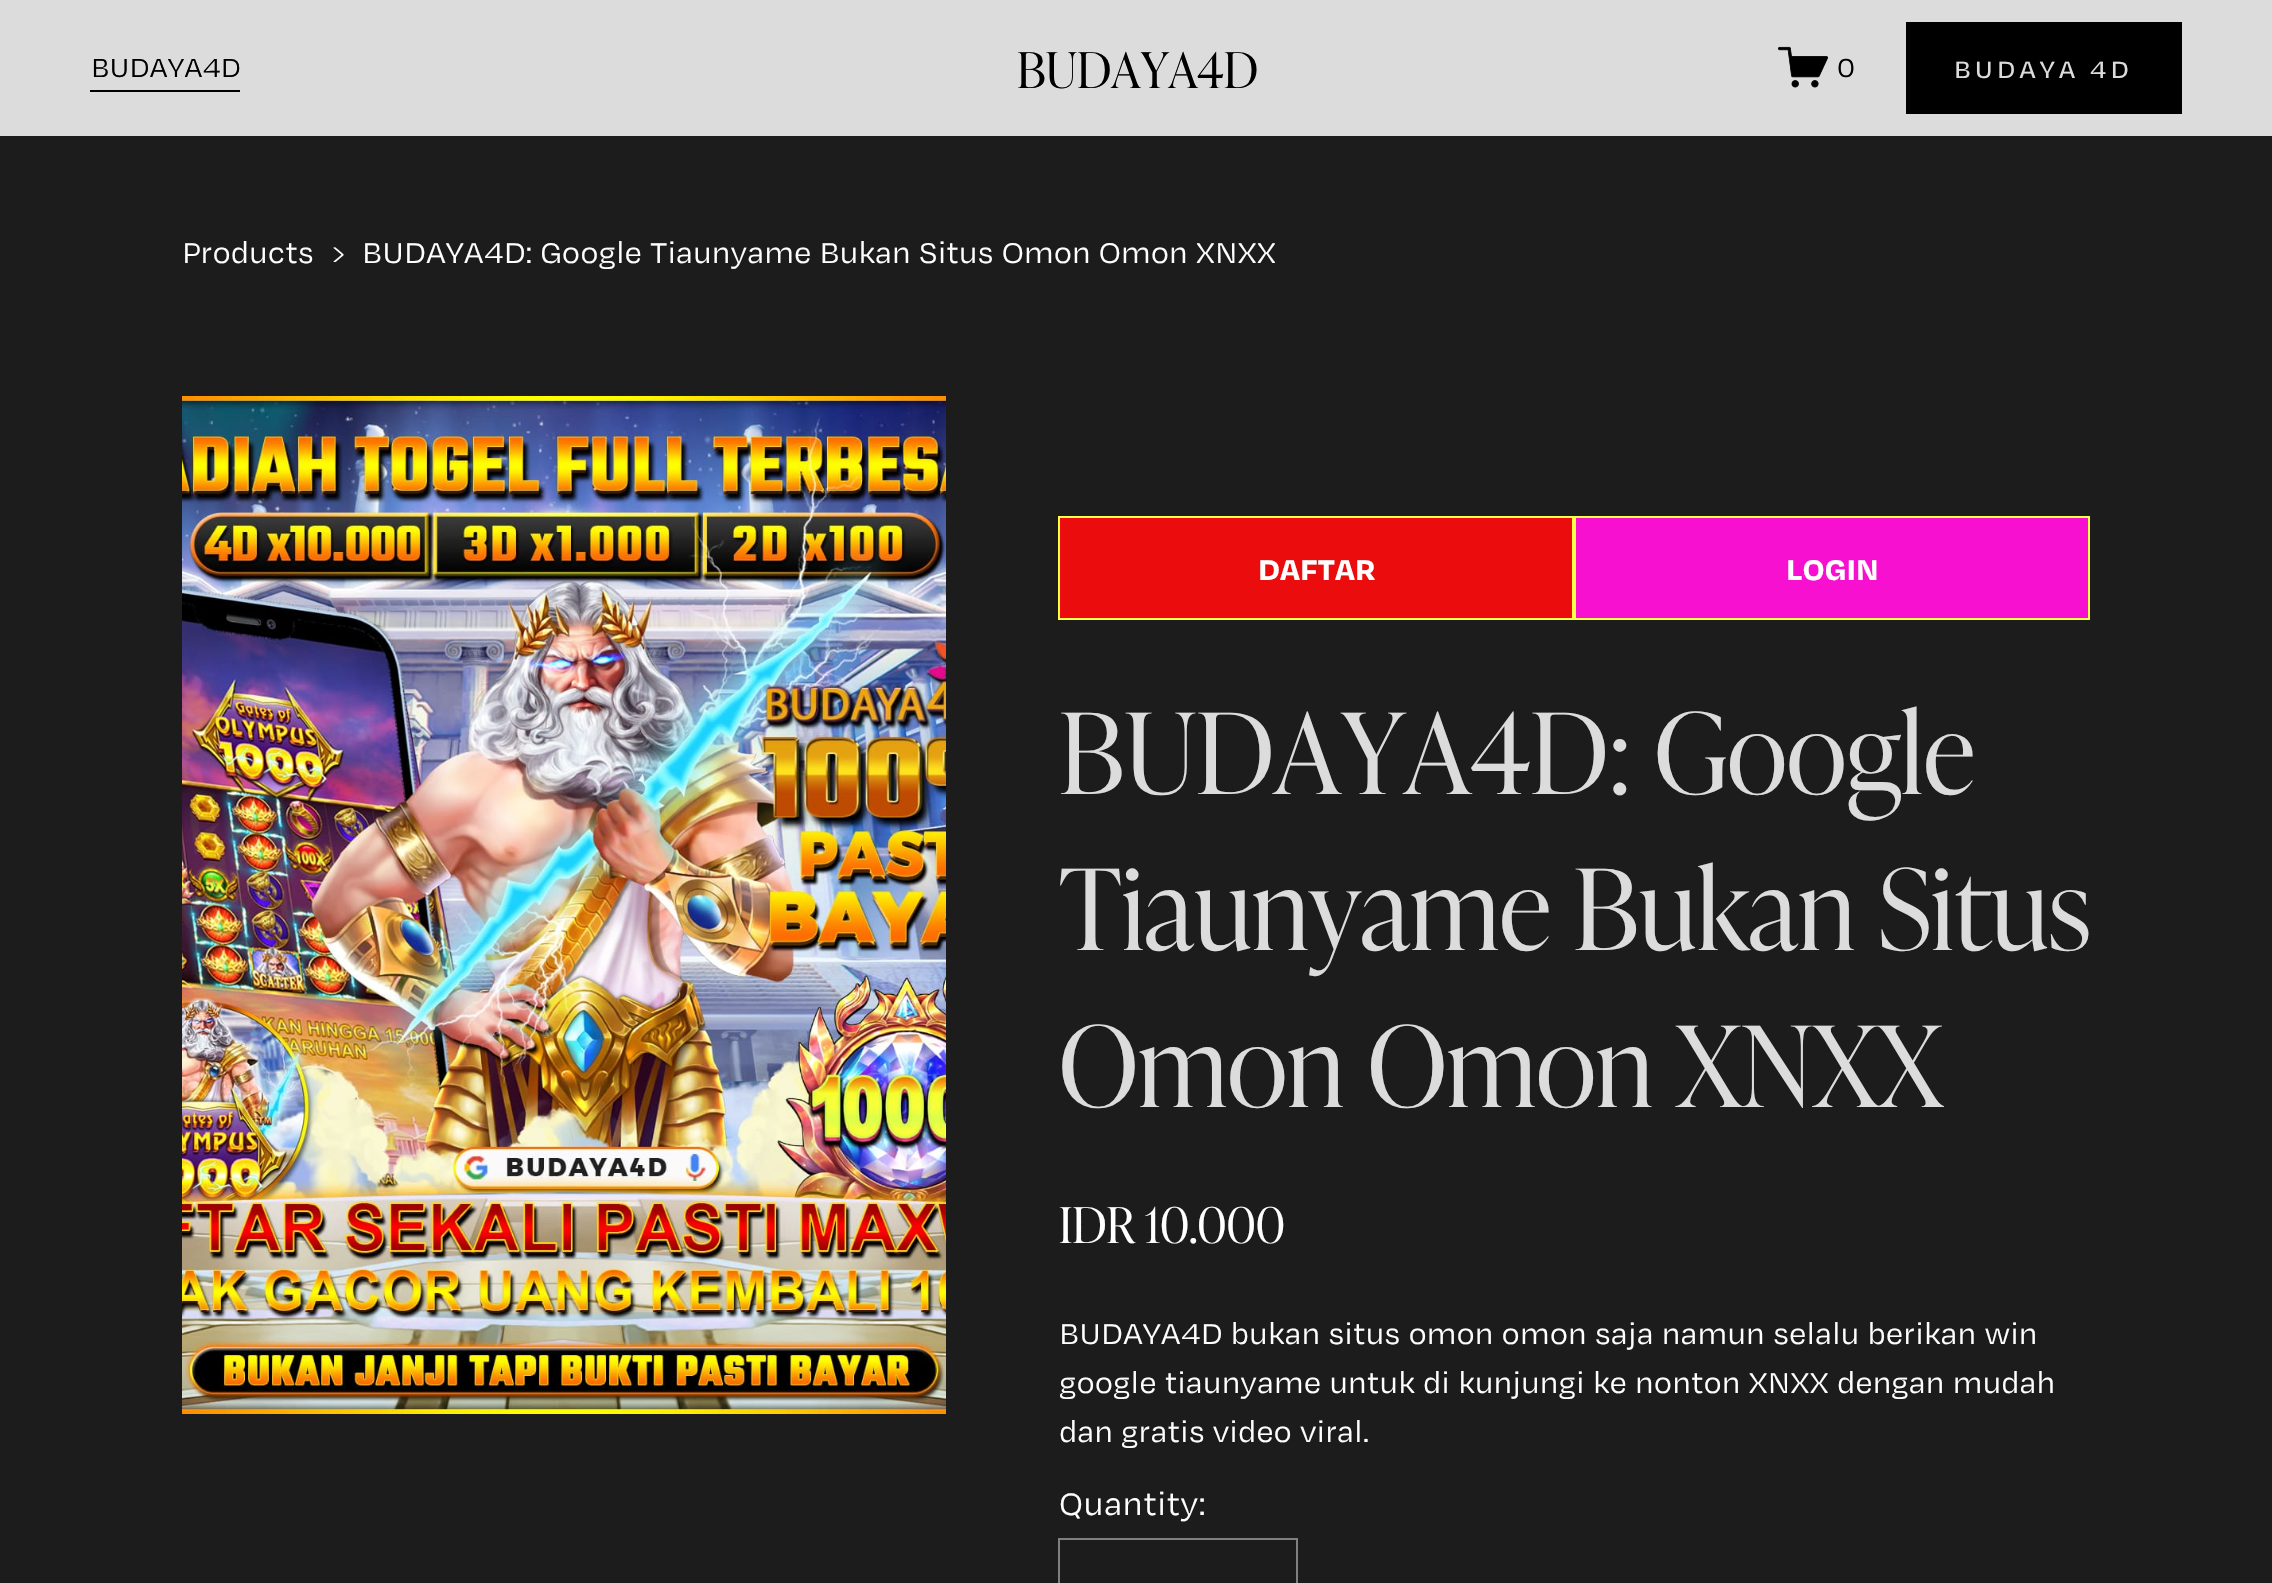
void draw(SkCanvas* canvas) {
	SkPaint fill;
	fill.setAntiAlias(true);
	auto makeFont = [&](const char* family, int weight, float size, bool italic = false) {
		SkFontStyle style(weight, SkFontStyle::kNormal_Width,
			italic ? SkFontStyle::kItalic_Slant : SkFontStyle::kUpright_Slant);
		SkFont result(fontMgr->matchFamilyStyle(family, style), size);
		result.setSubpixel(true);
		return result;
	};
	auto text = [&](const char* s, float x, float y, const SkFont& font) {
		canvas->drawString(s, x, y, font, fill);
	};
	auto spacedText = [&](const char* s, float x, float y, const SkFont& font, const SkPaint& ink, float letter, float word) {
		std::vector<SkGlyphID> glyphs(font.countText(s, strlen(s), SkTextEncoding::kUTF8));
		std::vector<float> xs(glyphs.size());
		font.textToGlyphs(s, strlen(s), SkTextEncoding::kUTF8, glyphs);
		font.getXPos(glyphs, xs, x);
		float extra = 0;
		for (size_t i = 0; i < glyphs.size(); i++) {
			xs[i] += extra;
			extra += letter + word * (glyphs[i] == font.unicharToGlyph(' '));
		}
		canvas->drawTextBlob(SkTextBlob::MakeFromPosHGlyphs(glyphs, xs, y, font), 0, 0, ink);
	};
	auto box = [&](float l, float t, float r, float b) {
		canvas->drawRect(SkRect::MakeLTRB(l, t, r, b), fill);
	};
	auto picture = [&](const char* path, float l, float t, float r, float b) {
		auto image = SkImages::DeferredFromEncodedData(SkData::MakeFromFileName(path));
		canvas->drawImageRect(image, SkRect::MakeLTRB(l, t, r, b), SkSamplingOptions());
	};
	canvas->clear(0xFF1C1C1C);
	fill.setColor(0xFFDCDCDC);
	box(0, 0, 2272, 136);
	fill.setColor(0xFF000000);
	box(90, 90, 240, 92);
	picture("image0.png", 1778, 46, 1828, 88);
	box(1906, 22, 2182, 114);
	picture("image1.png", 182, 396, 946, 1414);
	fill.setColor(0xFFEB0D0D);
	canvas->drawRect(SkRect::MakeLTRB(1059, 517, 1573, 619), fill);
	fill.setStyle(SkPaint::kStroke_Style);
	fill.setStrokeWidth(2);
	fill.setColor(0xFFFCFF47);
	canvas->drawRect(SkRect::MakeLTRB(1059, 517, 1573, 619), fill);
	fill.setStyle(SkPaint::kFill_Style);
	fill.setColor(0xFFF710D0);
	canvas->drawRect(SkRect::MakeLTRB(1575, 517, 2089, 619), fill);
	fill.setStyle(SkPaint::kStroke_Style);
	fill.setColor(0xFFFCFF47);
	canvas->drawRect(SkRect::MakeLTRB(1575, 517, 2089, 619), fill);
	fill.setColor(0xFF808080);
	canvas->drawRect(SkRect::MakeLTRB(1059, 1539, 1297, 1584), fill);
	auto font1 = makeFont("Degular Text", 400, 30);
	fill.setStyle(SkPaint::kFill_Style);
	fill.setColor(0xFF000000);
	text("BUDAYA4D", 91, 77, font1);
	auto font2 = makeFont("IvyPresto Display", 300, 49);
	text("BUDAYA4D", 1017, 88, font2);
	text("0", 1837, 77, font1);
	auto font3 = makeFont("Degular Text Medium", 500, 27.25f);
	fill.setColor(0xFFDCDCDC);
	spacedText("BUDAYA 4D", 1954, 78, font3, fill, 4, 0);
	auto font4 = makeFont("Degular Text", 400, 32.75f);
	fill.setColor(0xFFFFFFFF);
	text("Products", 182, 263, font4);
	text("›", 332, 263, font4);
	text("BUDAYA4D: Google Tiaunyame Bukan Situs Omon Omon XNXX", 362, 263, font4);
	auto font5 = makeFont("Degular Text", 700, 32.75f);
	text("DAFTAR", 1258, 580, font5);
	text("LOGIN", 1786, 580, font5);
	auto font6 = makeFont("IvyPresto Display", 300, 111.75f);
	fill.setColor(0xFFDCDCDC);
	text("BUDAYA4D: Google", 1059, 794, font6);
	text("Tiaunyame Bukan Situs", 1059, 950, font6);
	text("Omon Omon XNXX", 1059, 1107, font6);
	fill.setColor(0xFFFFFFFF);
	text("IDR 10.000", 1059, 1243, font2);
	text("BUDAYA4D bukan situs omon omon saja namun selalu berikan win", 1059, 1344, font4);
	text("google tiaunyame untuk di kunjungi ke nonton XNXX dengan mudah", 1059, 1393, font4);
	text("dan gratis video viral.", 1059, 1442, font4);
	auto font7 = makeFont("Degular Text", 400, 35.5f);
	spacedText("Quantity:", 1059, 1515, font7, fill, 0.25f, 0);
}
